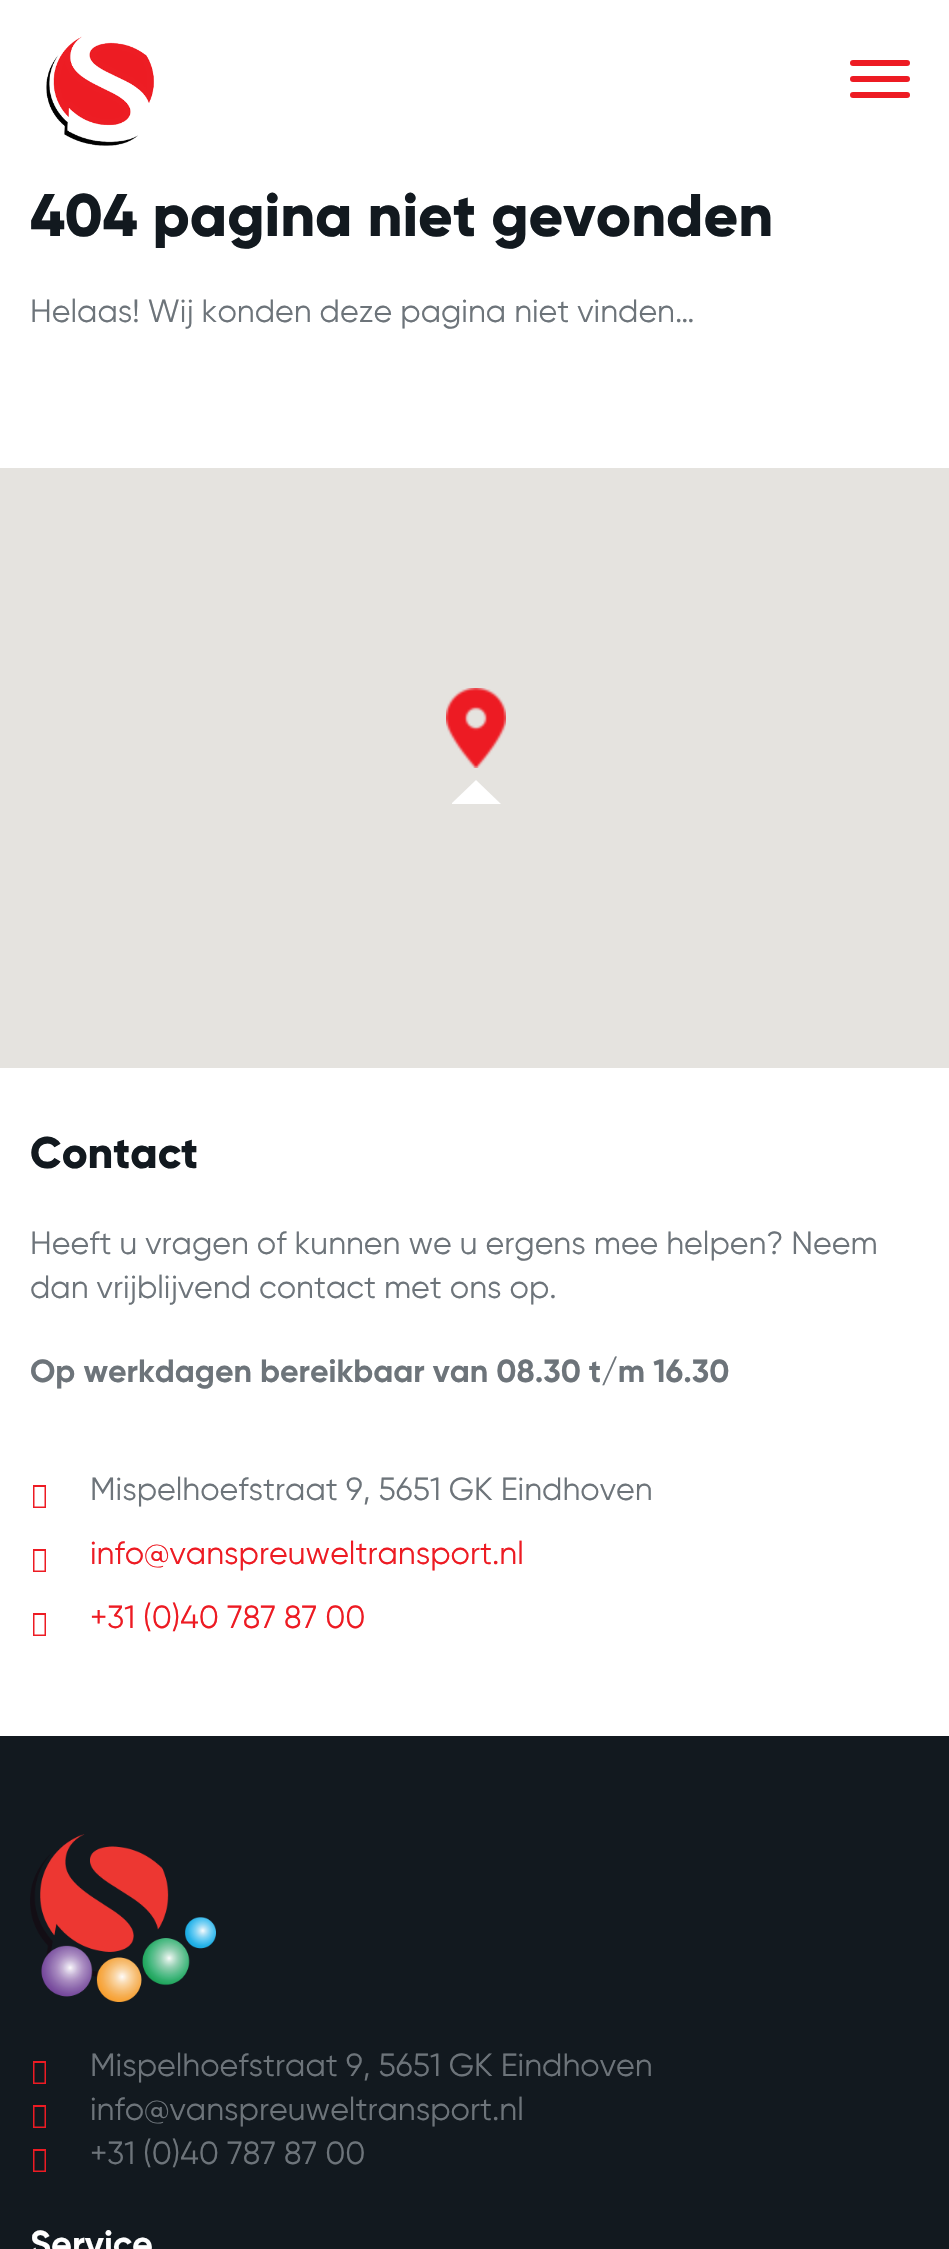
void draw(SkCanvas* canvas) {
	SkPaint fill;
	fill.setAntiAlias(true);
	auto makeFont = [&](const char* family, int weight, float size, bool italic = false) {
		SkFontStyle style(weight, SkFontStyle::kNormal_Width,
			italic ? SkFontStyle::kItalic_Slant : SkFontStyle::kUpright_Slant);
		SkFont result(fontMgr->matchFamilyStyle(family, style), size);
		result.setSubpixel(true);
		return result;
	};
	auto text = [&](const char* s, float x, float y, const SkFont& font) {
		canvas->drawString(s, x, y, font, fill);
	};
	auto box = [&](float l, float t, float r, float b) {
		canvas->drawRect(SkRect::MakeLTRB(l, t, r, b), fill);
	};
	auto roundBox = [&](float l, float t, float r, float b, float radius) {
		canvas->drawRoundRect(SkRect::MakeLTRB(l, t, r, b), radius, radius, fill);
	};
	auto picture = [&](const char* path, float l, float t, float r, float b) {
		auto image = SkImages::DeferredFromEncodedData(SkData::MakeFromFileName(path));
		canvas->drawImageRect(image, SkRect::MakeLTRB(l, t, r, b), SkSamplingOptions());
	};
	canvas->clear(0xFFFFFFFF);
	picture("image0.png", 46, 36, 154, 146);
	fill.setColor(0xFFED1B23);
	roundBox(850, 60, 910, 66, 3);
	roundBox(850, 76, 910, 82, 3);
	roundBox(850, 92, 910, 98, 3);
	fill.setColor(0xFFE5E3DF);
	box(0, 468, 949, 1068);
	picture("image1.png", 446, 688, 506, 768);
	fill.setColor(0xFFFFFFFF);
	canvas->drawPath(SkPathBuilder().moveTo(501, 804).lineTo(452, 804).lineTo(452, 803).lineTo(476, 780).close().detach(), fill);
	fill.setColor(0xFFED1B23);
	canvas->drawPath(SkPathBuilder().moveTo(33, 1508).lineTo(33, 1485).lineTo(46, 1485).lineTo(46, 1508).close().moveTo(34.5f, 1506.5f).lineTo(44.5f, 1506.5f).lineTo(44.5f, 1487).lineTo(34.5f, 1487).close().detach(), fill);
	canvas->drawPath(SkPathBuilder().moveTo(33, 1572).lineTo(33, 1549).lineTo(46, 1549).lineTo(46, 1572).close().moveTo(34.5f, 1570.5f).lineTo(44.5f, 1570.5f).lineTo(44.5f, 1551).lineTo(34.5f, 1551).close().detach(), fill);
	canvas->drawPath(SkPathBuilder().moveTo(33, 1636).lineTo(33, 1613).lineTo(46, 1613).lineTo(46, 1636).close().moveTo(34.5f, 1634.5f).lineTo(44.5f, 1634.5f).lineTo(44.5f, 1615).lineTo(34.5f, 1615).close().detach(), fill);
	fill.setColor(0xFF12191F);
	box(0, 1736, 949, 2249);
	picture("image2.png", 30, 1834, 216, 2002);
	fill.setColor(0xFFED1B23);
	canvas->drawPath(SkPathBuilder().moveTo(33, 2084).lineTo(33, 2061).lineTo(46, 2061).lineTo(46, 2084).close().moveTo(34.5f, 2082.5f).lineTo(44.5f, 2082.5f).lineTo(44.5f, 2063).lineTo(34.5f, 2063).close().detach(), fill);
	canvas->drawPath(SkPathBuilder().moveTo(33, 2128).lineTo(33, 2105).lineTo(46, 2105).lineTo(46, 2128).close().moveTo(34.5f, 2126.5f).lineTo(44.5f, 2126.5f).lineTo(44.5f, 2107).lineTo(34.5f, 2107).close().detach(), fill);
	canvas->drawPath(SkPathBuilder().moveTo(33, 2172).lineTo(33, 2149).lineTo(46, 2149).lineTo(46, 2172).close().moveTo(34.5f, 2170.5f).lineTo(44.5f, 2170.5f).lineTo(44.5f, 2151).lineTo(34.5f, 2151).close().detach(), fill);
	auto font1 = makeFont("Gilroy", 800, 60);
	fill.setColor(0xFF12191F);
	text("404 pagina niet gevonden", 30, 236, font1);
	auto font2 = makeFont("Gilroy", 400, 32);
	fill.setColor(0xFF6D747A);
	text("Helaas! Wij konden deze pagina niet vinden…", 30, 322, font2);
	auto font3 = makeFont("Gilroy", 800, 44);
	fill.setColor(0xFF12191F);
	text("Contact", 30, 1168, font3);
	fill.setColor(0xFF6D747A);
	text("Heeft u vragen of kunnen we u ergens mee helpen? Neem", 30, 1254, font2);
	text("dan vrijblijvend contact met ons op.", 30, 1298, font2);
	auto font4 = makeFont("Gilroy", 700, 32);
	text("Op werkdagen bereikbaar van 08.30 t/m 16.30", 30, 1382, font4);
	text("Mispelhoefstraat 9, 5651 GK Eindhoven", 90, 1500, font2);
	fill.setColor(0xFFED1B23);
	text("info@vanspreuweltransport.nl", 90, 1564, font2);
	text("+31 (0)40 787 87 00", 90, 1628, font2);
	fill.setColor(0xFF6D747A);
	text("Mispelhoefstraat 9, 5651 GK Eindhoven", 90, 2076, font2);
	text("info@vanspreuweltransport.nl", 90, 2120, font2);
	text("+31 (0)40 787 87 00", 90, 2164, font2);
	auto font5 = makeFont("Gilroy", 700, 36);
	fill.setColor(0xFFFFFFFF);
	text("Service", 30, 2256, font5);
}
